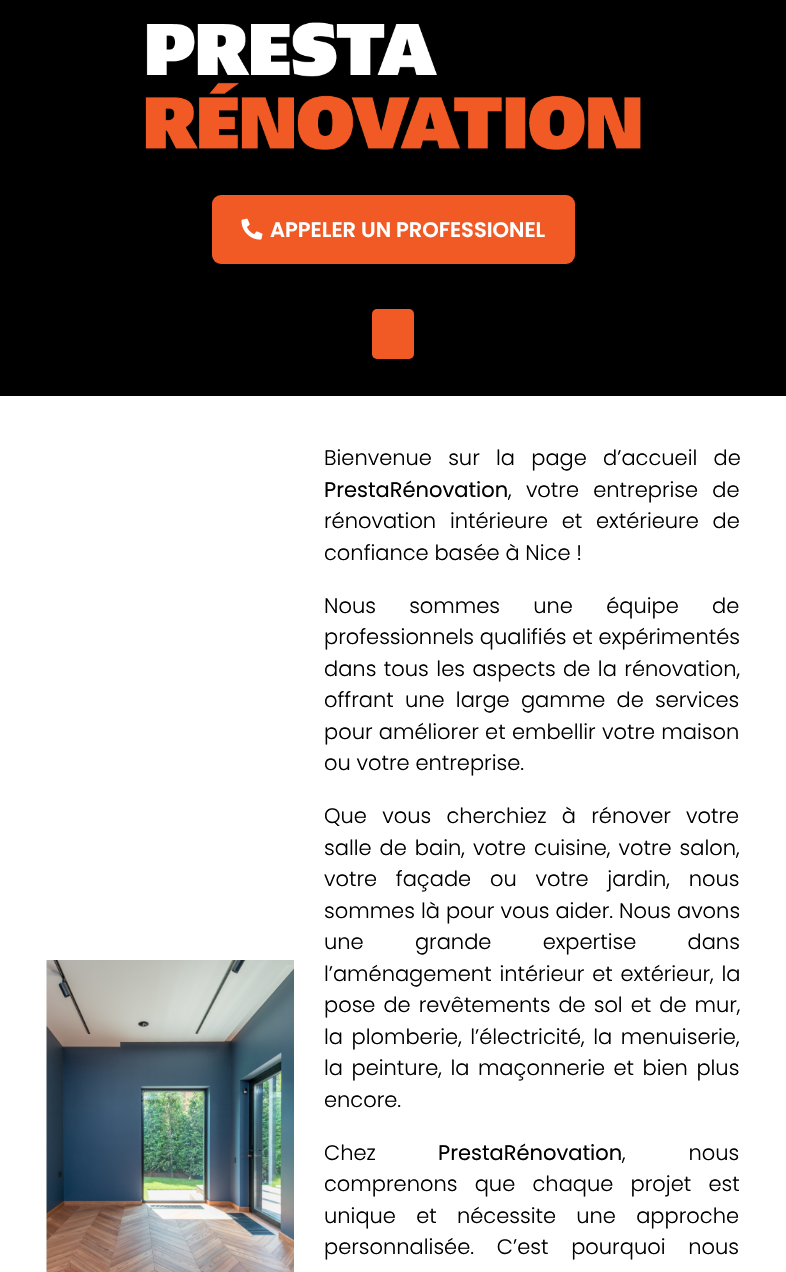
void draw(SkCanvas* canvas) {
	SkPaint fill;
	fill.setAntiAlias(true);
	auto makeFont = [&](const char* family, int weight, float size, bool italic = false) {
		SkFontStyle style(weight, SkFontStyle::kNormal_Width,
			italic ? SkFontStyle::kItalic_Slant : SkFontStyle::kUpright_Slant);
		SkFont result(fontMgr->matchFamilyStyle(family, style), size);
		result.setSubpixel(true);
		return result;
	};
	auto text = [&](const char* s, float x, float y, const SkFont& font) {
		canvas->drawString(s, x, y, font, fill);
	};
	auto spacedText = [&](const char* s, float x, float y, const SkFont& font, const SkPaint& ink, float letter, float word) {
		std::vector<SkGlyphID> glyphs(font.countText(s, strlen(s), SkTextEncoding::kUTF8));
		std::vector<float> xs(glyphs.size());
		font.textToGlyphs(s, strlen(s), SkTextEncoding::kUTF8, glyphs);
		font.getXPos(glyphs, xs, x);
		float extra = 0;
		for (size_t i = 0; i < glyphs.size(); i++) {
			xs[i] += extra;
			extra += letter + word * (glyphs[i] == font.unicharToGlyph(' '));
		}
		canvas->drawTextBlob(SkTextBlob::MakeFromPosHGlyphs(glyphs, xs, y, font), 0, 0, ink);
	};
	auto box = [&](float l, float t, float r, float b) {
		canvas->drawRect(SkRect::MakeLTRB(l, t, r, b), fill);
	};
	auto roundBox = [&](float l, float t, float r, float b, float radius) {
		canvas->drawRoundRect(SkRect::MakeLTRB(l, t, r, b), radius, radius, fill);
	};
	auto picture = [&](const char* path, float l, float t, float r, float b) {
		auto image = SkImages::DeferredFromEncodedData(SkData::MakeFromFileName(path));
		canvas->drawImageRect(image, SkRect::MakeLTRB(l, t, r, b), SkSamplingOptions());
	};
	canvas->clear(0xFFFFFFFF);
	fill.setColor(0xFF000000);
	box(0, 0, 786, 396);
	picture("image0.png", 145, 22, 641, 150);
	fill.setColor(0xFFF15A24);
	roundBox(212, 195, 575, 264, 9);
	picture("image1.png", 241, 218, 263, 240);
	roundBox(372, 309, 414, 359, 5);
	picture("image2.png", 46, 960, 294, 1272);
	auto font1 = makeFont("Poppins", 600, 21);
	fill.setColor(0xFFFFFFFF);
	text("APPELER UN PROFESSIONEL", 270, 237, font1);
	auto font2 = makeFont("Poppins", 300, 21);
	fill.setColor(0xFF000000);
	spacedText("Bienvenue sur la page d’accueil de", 324, 465, font2, fill, 0, 10.5f);
	auto font3 = makeFont("Poppins", 400, 21);
	text("PrestaRénovation", 324, 497, font3);
	spacedText(", votre entreprise de", 508, 497, font2, fill, 0, 8.5f);
	spacedText("rénovation intérieure et extérieure de", 324, 528, font2, fill, 0, 8);
	text("confiance basée à Nice !", 324, 560, font2);
	spacedText("Nous sommes une équipe de", 324, 613, font2, fill, 0, 27.5f);
	text("professionnels qualifiés et expérimentés", 324, 644, font2);
	spacedText("dans tous les aspects de la rénovation,", 324, 676, font2, fill, 0, 1.75f);
	spacedText("offrant une large gamme de services", 324, 707, font2, fill, 0, 5.5f);
	spacedText("pour améliorer et embellir votre maison", 324, 739, font2, fill, 0, 0.5f);
	text("ou votre entreprise.", 324, 770, font2);
	spacedText("Que vous cherchiez à rénover votre", 324, 823, font2, fill, 0, 9.5f);
	spacedText("salle de bain, votre cuisine, votre salon,", 324, 855, font2, fill, 0, 2.25f);
	spacedText("votre façade ou votre jardin, nous", 324, 886, font2, fill, 0, 13);
	spacedText("sommes là pour vous aider. Nous avons", 324, 918, font2, fill, 0, 0.25f);
	spacedText("une grande expertise dans", 324, 949, font2, fill, 0, 45.5f);
	spacedText("l’aménagement intérieur et extérieur, la", 324, 981, font2, fill, 0, 2);
	spacedText("pose de revêtements de sol et de mur,", 324, 1012, font2, fill, 0, 2.25f);
	spacedText("la plomberie, l’électricité, la menuiserie,", 324, 1044, font2, fill, 0, 2.75f);
	spacedText("la peinture, la maçonnerie et bien plus", 324, 1075, font2, fill, 0, 2.75f);
	text("encore.", 324, 1107, font2);
	text("Chez", 324, 1160, font2);
	text("PrestaRénovation", 438, 1160, font3);
	spacedText(", nous", 622, 1160, font2, fill, 0, 57);
	spacedText("comprenons que chaque projet est", 324, 1191, font2, fill, 0, 11.5f);
	spacedText("unique et nécessite une approche", 324, 1223, font2, fill, 0, 14.5f);
	spacedText("personnalisée. C’est pourquoi nous", 324, 1254, font2, fill, 0, 17);
}
